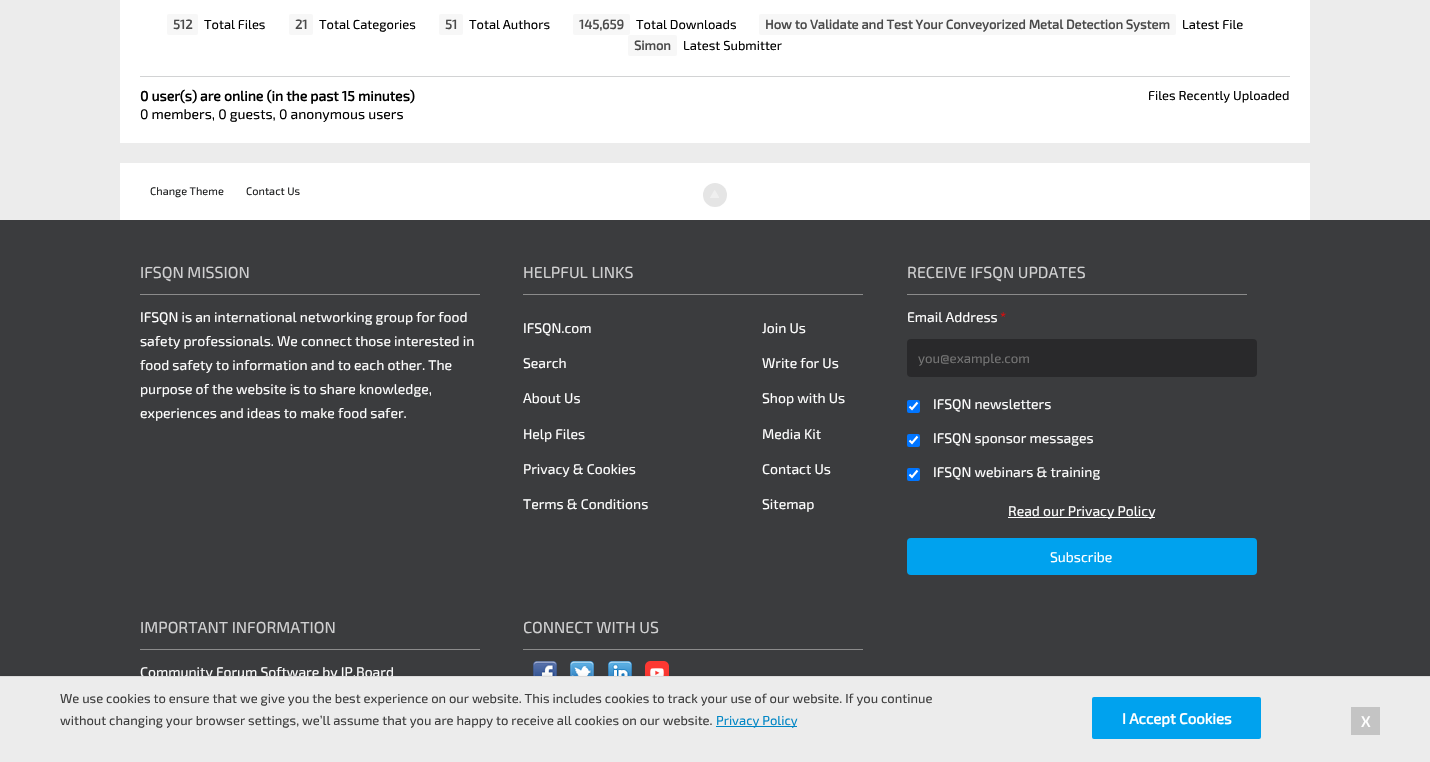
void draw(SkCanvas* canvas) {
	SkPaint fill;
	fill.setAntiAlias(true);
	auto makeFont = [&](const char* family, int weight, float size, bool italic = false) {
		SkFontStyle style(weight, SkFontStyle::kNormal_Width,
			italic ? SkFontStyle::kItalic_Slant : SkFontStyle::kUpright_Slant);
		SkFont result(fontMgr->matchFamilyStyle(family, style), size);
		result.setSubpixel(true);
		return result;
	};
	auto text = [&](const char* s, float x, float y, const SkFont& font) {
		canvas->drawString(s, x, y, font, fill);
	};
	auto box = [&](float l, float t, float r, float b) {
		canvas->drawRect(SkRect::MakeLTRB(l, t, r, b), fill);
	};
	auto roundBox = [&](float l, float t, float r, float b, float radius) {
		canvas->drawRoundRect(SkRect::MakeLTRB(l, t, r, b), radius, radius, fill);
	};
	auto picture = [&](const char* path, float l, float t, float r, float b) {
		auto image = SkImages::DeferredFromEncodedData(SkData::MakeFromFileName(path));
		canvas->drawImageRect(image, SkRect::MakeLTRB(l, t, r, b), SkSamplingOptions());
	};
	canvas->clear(0xFFECECEC);
	fill.setColor(0xFFFFFFFF);
	box(120, 0, 1310, 143);
	fill.setColor(0xFFF7F7F7);
	roundBox(167, 14, 198, 35, 2);
	roundBox(289, 14, 313, 35, 2);
	roundBox(439, 14, 463, 35, 2);
	roundBox(573, 14, 630, 35, 2);
	roundBox(759, 14, 1176, 35, 2);
	roundBox(628, 35, 677, 56, 2);
	fill.setColor(0xFFD2D3D4);
	box(140, 76, 1290, 77);
	fill.setColor(0xFFFFFFFF);
	box(120, 163, 1310, 220);
	fill.setColor(0xFFE5E5E5);
	canvas->drawCircle(715, 195, 12, fill);
	picture("image0.png", 710, 190, 719, 198);
	fill.setColor(0xFF3B3C3E);
	box(0, 220, 1430, 676);
	fill.setColor(0xFF8B8B8B);
	box(140, 294, 480, 295);
	box(523, 294, 863, 295);
	box(907, 294, 1247, 295);
	fill.setColor(0xFF29292B);
	roundBox(907, 339, 1257, 377, 4);
	fill.setColor(0xFF0075FF);
	roundBox(907, 400, 920, 413, 2);
	fill.setStyle(SkPaint::kStroke_Style);
	fill.setStrokeWidth(2.1f);
	fill.setColor(0xFFFFFFFF);
	canvas->drawPath(SkPathBuilder().moveTo(909.5f, 406.5f).lineTo(912, 409).lineTo(917.5f, 402.5f).detach(), fill);
	fill.setStyle(SkPaint::kFill_Style);
	fill.setColor(0xFF0075FF);
	roundBox(907, 434, 920, 447, 2);
	fill.setStyle(SkPaint::kStroke_Style);
	fill.setColor(0xFFFFFFFF);
	canvas->drawPath(SkPathBuilder().moveTo(909.5f, 440.5f).lineTo(912, 443).lineTo(917.5f, 436.5f).detach(), fill);
	fill.setStyle(SkPaint::kFill_Style);
	fill.setColor(0xFF0075FF);
	roundBox(907, 468, 920, 481, 2);
	fill.setStyle(SkPaint::kStroke_Style);
	fill.setColor(0xFFFFFFFF);
	canvas->drawPath(SkPathBuilder().moveTo(909.5f, 474.5f).lineTo(912, 477).lineTo(917.5f, 470.5f).detach(), fill);
	fill.setStyle(SkPaint::kFill_Style);
	box(1008, 517, 1155, 518);
	fill.setColor(0xFF00A2EE);
	roundBox(907, 538, 1257, 575, 4);
	fill.setColor(0xFF8B8B8B);
	box(140, 649, 480, 650);
	box(523, 649, 863, 650);
	picture("image1.png", 533, 661, 557, 676);
	picture("image2.png", 570, 661, 594, 676);
	picture("image3.png", 608, 661, 632, 676);
	picture("image4.png", 645, 661, 669, 676);
	fill.setColor(0x14000000);
	fill.setMaskFilter(SkMaskFilter::MakeBlur(kNormal_SkBlurStyle, 2.5f));
	canvas->drawRect(SkRect::MakeLTRB(0, 676, 1430, 762), fill);
	fill.setMaskFilter(nullptr);
	auto font1 = makeFont("Exo 2", 700, 13);
	fill.setColor(0xFF4A4A4A);
	text("512", 173, 29, font1);
	auto font2 = makeFont("Exo 2", 400, 13);
	fill.setColor(0xFF000000);
	text("Total Files", 204, 29, font2);
	fill.setColor(0xFF4A4A4A);
	text("21", 295, 29, font1);
	fill.setColor(0xFF000000);
	text("Total Categories", 319, 29, font2);
	fill.setColor(0xFF4A4A4A);
	text("51", 445, 29, font1);
	fill.setColor(0xFF000000);
	text("Total Authors", 469, 29, font2);
	fill.setColor(0xFF4A4A4A);
	text("145,659", 579, 29, font1);
	fill.setColor(0xFF000000);
	text("Total Downloads", 636, 29, font2);
	fill.setColor(0xFF4A4A4A);
	text("How to Validate and Test Your Conveyorized Metal Detection System", 765, 29, font1);
	fill.setColor(0xFF000000);
	text("Latest File", 1182, 29, font2);
	fill.setColor(0xFF4A4A4A);
	text("Simon", 634, 50, font1);
	fill.setColor(0xFF000000);
	text("Latest Submitter", 683, 50, font2);
	auto font3 = makeFont("Exo 2", 700, 14);
	text("0 user(s) are online (in the past 15 minutes)", 140, 101, font3);
	text("Files Recently Uploaded", 1148, 100, font2);
	auto font4 = makeFont("Exo 2", 400, 14);
	text("0 members, 0 guests, 0 anonymous users", 140, 119, font4);
	auto font5 = makeFont("Exo 2", 400, 11);
	fill.setColor(0xFF1E1F20);
	text("Change Theme", 150, 195, font5);
	text("Contact Us", 246, 195, font5);
	auto font6 = makeFont("Exo 2", 400, 16);
	fill.setColor(0xFFD0D0D1);
	text("IFSQN MISSION", 140, 278, font6);
	fill.setColor(0xFFFFFFFF);
	text("IFSQN is an international networking group for food", 140, 322, font4);
	text("safety professionals. We connect those interested in", 140, 346, font4);
	text("food safety to information and to each other. The", 140, 370, font4);
	text("purpose of the website is to share knowledge,", 140, 394, font4);
	text("experiences and ideas to make food safer.", 140, 418, font4);
	fill.setColor(0xFFD0D0D1);
	text("HELPFUL LINKS", 523, 278, font6);
	fill.setColor(0xFFFFFFFF);
	text("IFSQN.com", 523, 333, font4);
	text("Search", 523, 368, font4);
	text("About Us", 523, 403, font4);
	text("Help Files", 523, 439, font4);
	text("Privacy & Cookies", 523, 474, font4);
	text("Terms & Conditions", 523, 509, font4);
	text("Join Us", 762, 333, font4);
	text("Write for Us", 762, 368, font4);
	text("Shop with Us", 762, 403, font4);
	text("Media Kit", 762, 439, font4);
	text("Contact Us", 762, 474, font4);
	text("Sitemap", 762, 509, font4);
	fill.setColor(0xFFD0D0D1);
	text("RECEIVE IFSQN UPDATES", 907, 278, font6);
	fill.setColor(0xFFFFFFFF);
	text("Email Address", 907, 322, font4);
	fill.setColor(0xFFFF0000);
	text("*", 1000, 322, font4);
	auto font7 = makeFont("Exo 2", 400, 13.25f);
	fill.setColor(0xFF757575);
	text("you@example.com", 918, 363, font7);
	fill.setColor(0xFFFFFFFF);
	text("IFSQN newsletters", 933, 409, font4);
	text("IFSQN sponsor messages", 933, 443, font4);
	text("IFSQN webinars & training", 933, 477, font4);
	text("Read our Privacy Policy", 1008, 516, font4);
	text("Subscribe", 1050, 562, font4);
	fill.setColor(0xFFD0D0D1);
	text("IMPORTANT INFORMATION", 140, 633, font6);
	fill.setColor(0xFFFFFFFF);
	text("Community Forum Software by IP.Board", 140, 677, font4);
	fill.setColor(0xFFD0D0D1);
	text("CONNECT WITH US", 523, 633, font6);
	fill.setColor(0xFFECECEC);
	box(0, 677, 1430, 762);
	fill.setColor(0xFFDBDBDB);
	box(0, 676, 1430, 677);
	fill.setColor(0xFF3D3D3D);
	text("We use cookies to ensure that we give you the best experience on our website. This includes cookies to track your use of our website. If you continue", 60, 703, font2);
	text("without changing your browser settings, we’ll assume that you are happy to receive all cookies on our website.", 60, 725, font2);
	fill.setColor(0xFF0086C5);
	box(716, 726, 797, 727);
	text("Privacy Policy", 716, 725, font2);
	fill.setColor(0xFF00A2EE);
	roundBox(1092, 697, 1261, 739, 2);
	auto font8 = makeFont("Exo 2", 700, 15);
	fill.setColor(0xFFFFFFFF);
	text("I Accept Cookies", 1122, 724, font8);
	fill.setColor(0xFFC4C4C4);
	box(1351, 707, 1380, 735);
	fill.setColor(0xFFFFFFFF);
	text("X", 1361, 727, font8);
}
